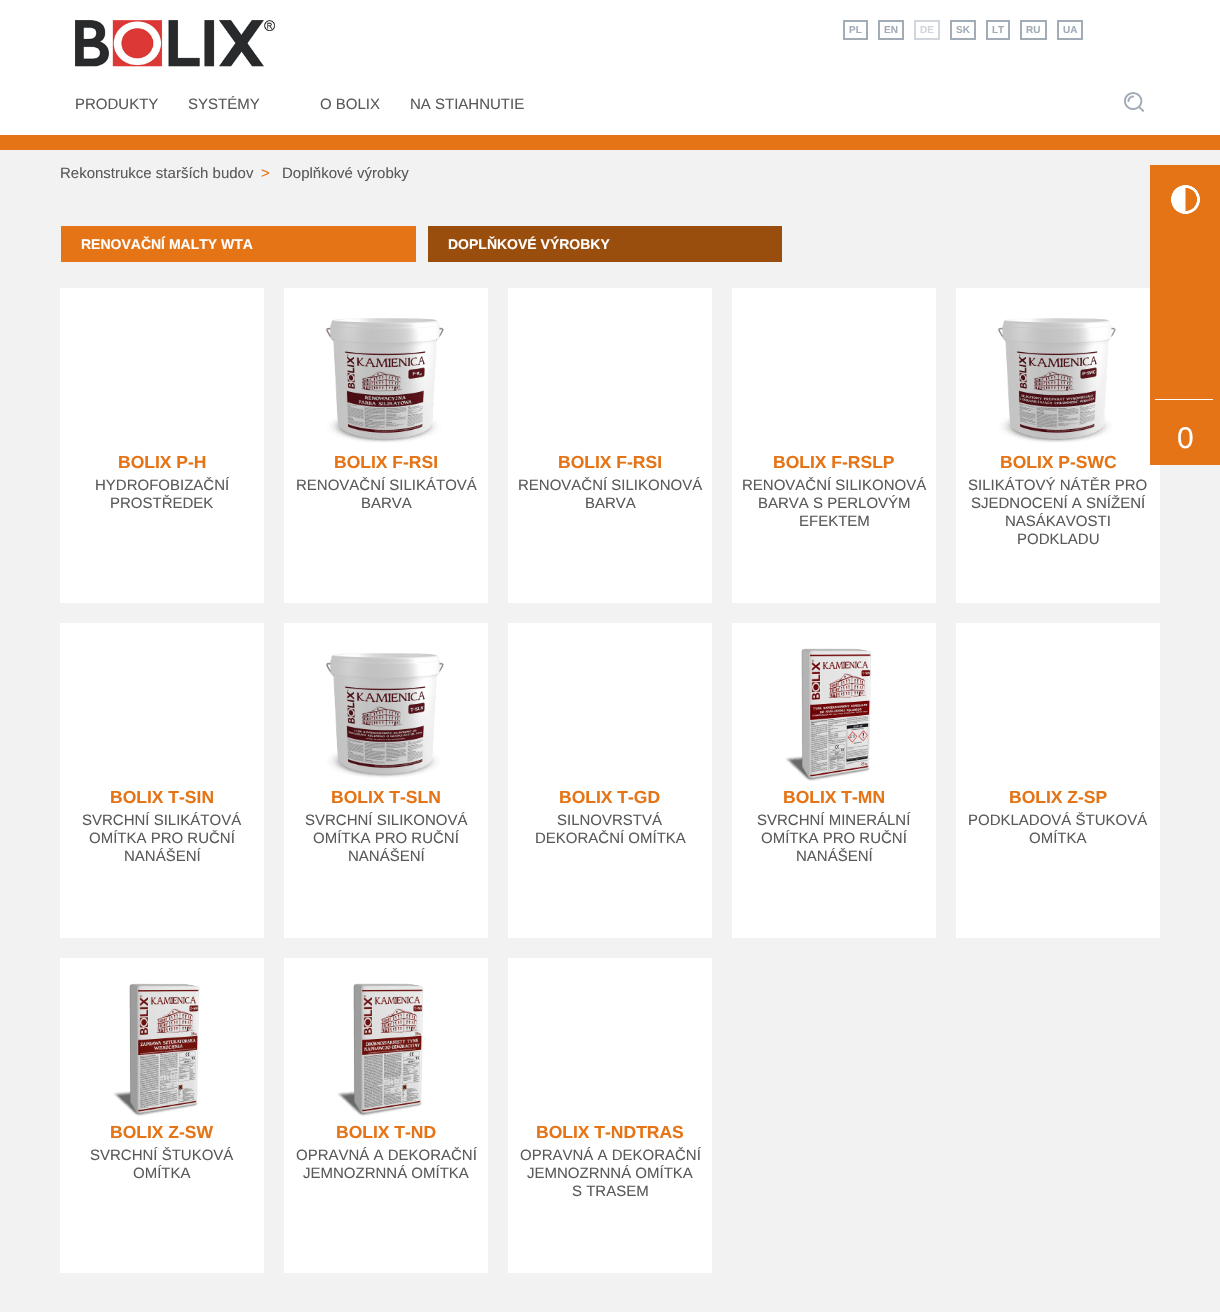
void draw(SkCanvas* canvas) {
	SkPaint fill;
	fill.setAntiAlias(true);
	auto makeFont = [&](const char* family, int weight, float size, bool italic = false) {
		SkFontStyle style(weight, SkFontStyle::kNormal_Width,
			italic ? SkFontStyle::kItalic_Slant : SkFontStyle::kUpright_Slant);
		SkFont result(fontMgr->matchFamilyStyle(family, style), size);
		result.setSubpixel(true);
		return result;
	};
	auto text = [&](const char* s, float x, float y, const SkFont& font) {
		canvas->drawString(s, x, y, font, fill);
	};
	auto box = [&](float l, float t, float r, float b) {
		canvas->drawRect(SkRect::MakeLTRB(l, t, r, b), fill);
	};
	auto picture = [&](const char* path, float l, float t, float r, float b) {
		auto image = SkImages::DeferredFromEncodedData(SkData::MakeFromFileName(path));
		canvas->drawImageRect(image, SkRect::MakeLTRB(l, t, r, b), SkSamplingOptions());
	};
	canvas->clear(0xFFFFFFFF);
	picture("image0.png", 75, 20, 275, 67);
	fill.setStyle(SkPaint::kStroke_Style);
	fill.setStrokeWidth(2);
	fill.setColor(0xFFA1ACB7);
	canvas->drawRect(SkRect::MakeLTRB(844, 21, 867, 39), fill);
	canvas->drawRect(SkRect::MakeLTRB(879, 21, 903, 39), fill);
	fill.setColor(0xFFD0D6DB);
	canvas->drawRect(SkRect::MakeLTRB(915, 21, 939, 39), fill);
	fill.setColor(0xFFA1ACB7);
	canvas->drawRect(SkRect::MakeLTRB(951, 21, 975, 39), fill);
	canvas->drawRect(SkRect::MakeLTRB(987, 21, 1009, 39), fill);
	canvas->drawRect(SkRect::MakeLTRB(1021, 21, 1046, 39), fill);
	canvas->drawRect(SkRect::MakeLTRB(1058, 21, 1082, 39), fill);
	picture("image1.png", 1124, 92, 1144, 112);
	fill.setStyle(SkPaint::kFill_Style);
	fill.setColor(0xFFF2F2F2);
	box(0, 150, 1220, 1312);
	fill.setColor(0xFFE47416);
	box(0, 135, 1220, 150);
	box(61, 226, 416, 262);
	fill.setColor(0xFF9A4E0D);
	box(428, 226, 782, 262);
	fill.setColor(0xFFFFFFFF);
	box(60, 288, 264, 603);
	box(284, 288, 488, 603);
	picture("image2.png", 326, 318, 444, 443);
	box(508, 288, 712, 603);
	box(732, 288, 936, 603);
	box(956, 288, 1160, 603);
	picture("image3.png", 998, 318, 1116, 443);
	box(60, 623, 264, 938);
	box(284, 623, 488, 938);
	picture("image4.png", 326, 653, 444, 779);
	box(508, 623, 712, 938);
	box(732, 623, 936, 938);
	picture("image5.png", 785, 648, 872, 781);
	box(956, 623, 1160, 938);
	box(60, 958, 264, 1273);
	picture("image6.png", 113, 983, 200, 1116);
	box(284, 958, 488, 1273);
	picture("image7.png", 337, 983, 424, 1117);
	box(508, 958, 712, 1273);
	fill.setColor(0xFFE47416);
	box(1150, 165, 1220, 465);
	picture("image8.png", 1171, 185, 1200, 214);
	fill.setColor(0xFFFFFFFF);
	box(1155, 399, 1213, 400);
	auto font1 = makeFont("Liberation Sans", 700, 10);
	fill.setColor(0xFFA1ACB7);
	text("PL", 849, 33, font1);
	text("EN", 884, 33, font1);
	fill.setColor(0xFFD0D6DB);
	text("DE", 920, 33, font1);
	fill.setColor(0xFFA1ACB7);
	text("SK", 956, 33, font1);
	text("LT", 992, 33, font1);
	text("RU", 1026, 33, font1);
	text("UA", 1063, 33, font1);
	auto font2 = makeFont("Liberation Sans", 400, 15);
	fill.setColor(0xFF5A5A5A);
	text("PRODUKTY", 75, 109, font2);
	text("SYSTÉMY", 188, 109, font2);
	text("O BOLIX", 320, 109, font2);
	text("NA STIAHNUTIE", 410, 109, font2);
	text("Rekonstrukce starších budov", 60, 178, font2);
	fill.setColor(0xFFE47416);
	text(">", 261, 178, font2);
	fill.setColor(0xFF5A5A5A);
	text("Doplňkové výrobky", 282, 178, font2);
	auto font3 = makeFont("Liberation Sans", 700, 14);
	fill.setColor(0xFFFFFFFF);
	text("RENOVAČNÍ MALTY WTA", 81, 249, font3);
	text("DOPLŇKOVÉ VÝROBKY", 448, 249, font3);
	auto font4 = makeFont("Liberation Sans", 700, 17.5f);
	fill.setColor(0xFFE47416);
	text("BOLIX P-H", 118, 468, font4);
	fill.setColor(0xFF5A5A5A);
	text("HYDROFOBIZAČNÍ", 95, 490, font2);
	text("PROSTŘEDEK", 110, 508, font2);
	fill.setColor(0xFFE47416);
	text("BOLIX F-RSI", 334, 468, font4);
	fill.setColor(0xFF5A5A5A);
	text("RENOVAČNÍ SILIKÁTOVÁ", 296, 490, font2);
	text("BARVA", 361, 508, font2);
	fill.setColor(0xFFE47416);
	text("BOLIX F-RSI", 558, 468, font4);
	fill.setColor(0xFF5A5A5A);
	text("RENOVAČNÍ SILIKONOVÁ", 518, 490, font2);
	text("BARVA", 585, 508, font2);
	fill.setColor(0xFFE47416);
	text("BOLIX F-RSLP", 773, 468, font4);
	fill.setColor(0xFF5A5A5A);
	text("RENOVAČNÍ SILIKONOVÁ", 742, 490, font2);
	text("BARVA S PERLOVÝM", 758, 508, font2);
	text("EFEKTEM", 799, 526, font2);
	fill.setColor(0xFFE47416);
	text("BOLIX P-SWC", 1000, 468, font4);
	fill.setColor(0xFF5A5A5A);
	text("SILIKÁTOVÝ NÁTĚR PRO", 968, 490, font2);
	text("SJEDNOCENÍ A SNÍŽENÍ", 971, 508, font2);
	text("NASÁKAVOSTI", 1005, 526, font2);
	text("PODKLADU", 1017, 544, font2);
	fill.setColor(0xFFE47416);
	text("BOLIX T-SIN", 110, 803, font4);
	fill.setColor(0xFF5A5A5A);
	text("SVRCHNÍ SILIKÁTOVÁ", 82, 825, font2);
	text("OMÍTKA PRO RUČNÍ", 89, 843, font2);
	text("NANÁŠENÍ", 124, 861, font2);
	fill.setColor(0xFFE47416);
	text("BOLIX T-SLN", 331, 803, font4);
	fill.setColor(0xFF5A5A5A);
	text("SVRCHNÍ SILIKONOVÁ", 305, 825, font2);
	text("OMÍTKA PRO RUČNÍ", 313, 843, font2);
	text("NANÁŠENÍ", 348, 861, font2);
	fill.setColor(0xFFE47416);
	text("BOLIX T-GD", 559, 803, font4);
	fill.setColor(0xFF5A5A5A);
	text("SILNOVRSTVÁ", 557, 825, font2);
	text("DEKORAČNÍ OMÍTKA", 535, 843, font2);
	fill.setColor(0xFFE47416);
	text("BOLIX T-MN", 783, 803, font4);
	fill.setColor(0xFF5A5A5A);
	text("SVRCHNÍ MINERÁLNÍ", 757, 825, font2);
	text("OMÍTKA PRO RUČNÍ", 761, 843, font2);
	text("NANÁŠENÍ", 796, 861, font2);
	fill.setColor(0xFFE47416);
	text("BOLIX Z-SP", 1009, 803, font4);
	fill.setColor(0xFF5A5A5A);
	text("PODKLADOVÁ ŠTUKOVÁ", 968, 825, font2);
	text("OMÍTKA", 1029, 843, font2);
	fill.setColor(0xFFE47416);
	text("BOLIX Z-SW", 110, 1138, font4);
	fill.setColor(0xFF5A5A5A);
	text("SVRCHNÍ ŠTUKOVÁ", 90, 1160, font2);
	text("OMÍTKA", 133, 1178, font2);
	fill.setColor(0xFFE47416);
	text("BOLIX T-ND", 336, 1138, font4);
	fill.setColor(0xFF5A5A5A);
	text("OPRAVNÁ A DEKORAČNÍ", 296, 1160, font2);
	text("JEMNOZRNNÁ OMÍTKA", 303, 1178, font2);
	fill.setColor(0xFFE47416);
	text("BOLIX T-NDTRAS", 536, 1138, font4);
	fill.setColor(0xFF5A5A5A);
	text("OPRAVNÁ A DEKORAČNÍ", 520, 1160, font2);
	text("JEMNOZRNNÁ OMÍTKA", 527, 1178, font2);
	text("S TRASEM", 572, 1196, font2);
	auto font5 = makeFont("Liberation Sans", 400, 30);
	fill.setColor(0xFFFFFFFF);
	text("0", 1177, 448, font5);
}
